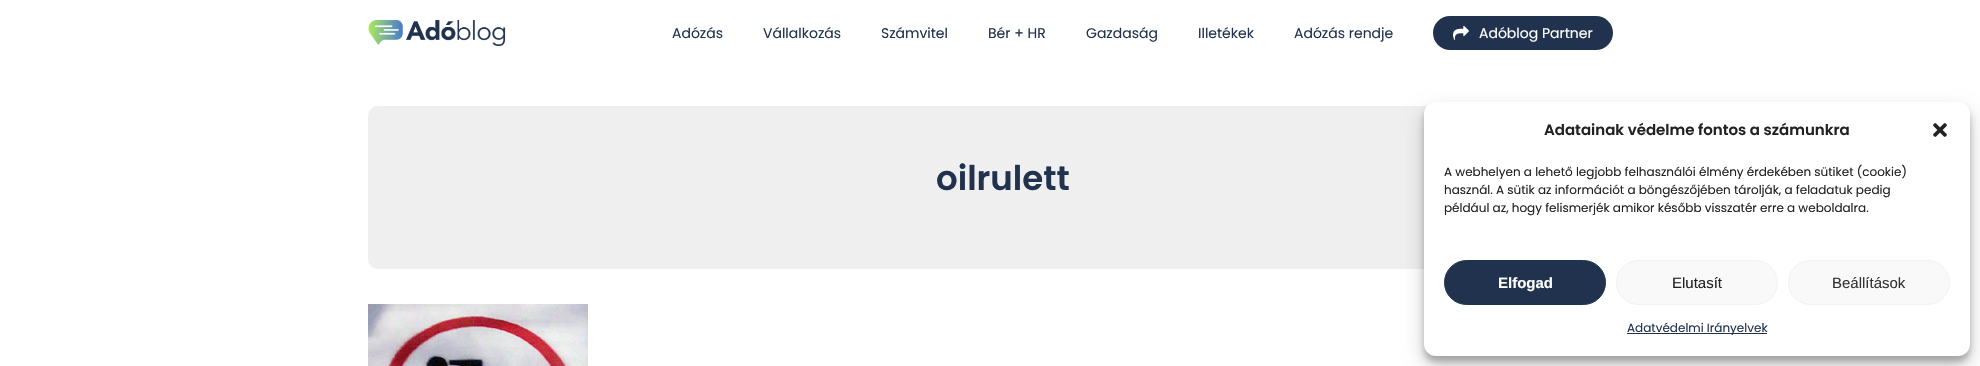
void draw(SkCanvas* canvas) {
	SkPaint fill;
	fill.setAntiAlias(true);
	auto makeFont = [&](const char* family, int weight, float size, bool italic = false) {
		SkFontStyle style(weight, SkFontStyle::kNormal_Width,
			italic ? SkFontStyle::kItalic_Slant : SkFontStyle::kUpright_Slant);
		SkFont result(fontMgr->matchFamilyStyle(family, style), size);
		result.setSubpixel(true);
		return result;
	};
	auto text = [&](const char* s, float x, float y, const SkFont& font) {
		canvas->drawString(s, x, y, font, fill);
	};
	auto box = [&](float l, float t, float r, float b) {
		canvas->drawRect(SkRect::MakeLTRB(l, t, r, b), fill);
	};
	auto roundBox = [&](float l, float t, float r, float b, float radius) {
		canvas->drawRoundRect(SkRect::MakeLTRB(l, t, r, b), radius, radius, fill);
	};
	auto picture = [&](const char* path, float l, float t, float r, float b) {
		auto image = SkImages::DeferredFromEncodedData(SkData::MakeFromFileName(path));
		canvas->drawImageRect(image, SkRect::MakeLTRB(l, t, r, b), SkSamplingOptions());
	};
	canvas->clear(0xFFFFFFFF);
	picture("image0.png", 368, 20, 506, 46);
	fill.setColor(0xFF21324E);
	roundBox(1433, 16, 1613, 50, 17);
	picture("image1.png", 1453, 25, 1469, 41);
	fill.setColor(0xFFEFEFEF);
	roundBox(368, 106, 1613, 269, 10);
	picture("image2.png", 368, 304, 588, 366);
	fill.setColor(0x3B000000);
	fill.setMaskFilter(SkMaskFilter::MakeBlur(kNormal_SkBlurStyle, 3));
	canvas->drawRoundRect(SkRect::MakeLTRB(1424, 108, 1970, 362), 12, 12, fill);
	fill.setMaskFilter(nullptr);
	fill.setColor(0x30000000);
	fill.setMaskFilter(SkMaskFilter::MakeBlur(kNormal_SkBlurStyle, 10));
	canvas->drawRoundRect(SkRect::MakeLTRB(1424, 112, 1970, 366), 12, 12, fill);
	fill.setMaskFilter(nullptr);
	fill.setColor(0xFFFFFFFF);
	roundBox(1424, 102, 1970, 356, 12);
	picture("image3.png", 1933, 123, 1947, 137);
	fill.setColor(0xFF21324E);
	canvas->drawRoundRect(SkRect::MakeLTRB(1444.5f, 260.5f, 1605.5f, 304.5f), 22, 22, fill);
	fill.setStyle(SkPaint::kStroke_Style);
	fill.setStrokeWidth(1);
	canvas->drawRoundRect(SkRect::MakeLTRB(1444.5f, 260.5f, 1605.5f, 304.5f), 22, 22, fill);
	fill.setStyle(SkPaint::kFill_Style);
	fill.setColor(0xFFF9F9F9);
	canvas->drawRoundRect(SkRect::MakeLTRB(1616.5f, 260.5f, 1777.5f, 304.5f), 22, 22, fill);
	fill.setStyle(SkPaint::kStroke_Style);
	fill.setColor(0xFFF2F2F2);
	canvas->drawRoundRect(SkRect::MakeLTRB(1616.5f, 260.5f, 1777.5f, 304.5f), 22, 22, fill);
	fill.setStyle(SkPaint::kFill_Style);
	fill.setColor(0xFFF9F9F9);
	canvas->drawRoundRect(SkRect::MakeLTRB(1788.5f, 260.5f, 1949.5f, 304.5f), 22, 22, fill);
	fill.setStyle(SkPaint::kStroke_Style);
	fill.setColor(0xFFF2F2F2);
	canvas->drawRoundRect(SkRect::MakeLTRB(1788.5f, 260.5f, 1949.5f, 304.5f), 22, 22, fill);
	fill.setStyle(SkPaint::kFill_Style);
	fill.setColor(0xFF21324E);
	box(1627, 333, 1767, 334);
	auto font1 = makeFont("Poppins", 400, 14);
	text("Adózás", 672, 38, font1);
	text("Vállalkozás", 763, 38, font1);
	text("Számvitel", 881, 38, font1);
	text("Bér + HR", 988, 38, font1);
	text("Gazdaság", 1086, 38, font1);
	text("Illetékek", 1198, 38, font1);
	text("Adózás rendje", 1294, 38, font1);
	fill.setColor(0xFFFFFFFF);
	text("Adóblog Partner", 1479, 38, font1);
	auto font2 = makeFont("Poppins", 600, 34);
	fill.setColor(0xFF21324E);
	text("oilrulett", 936, 190, font2);
	auto font3 = makeFont("Poppins", 600, 15);
	fill.setColor(0xFF222222);
	text("Adatainak védelme fontos a számunkra", 1544, 135, font3);
	auto font4 = makeFont("Poppins", 400, 12);
	text("A webhelyen a lehető legjobb felhasználói élmény érdekében sütiket (cookie)", 1444, 176, font4);
	text("használ. A sütik az információt a böngészőjében tárolják, a feladatuk pedig", 1444, 194, font4);
	text("például az, hogy felismerjék amikor később visszatér erre a weboldalra.", 1444, 212, font4);
	auto font5 = makeFont("Liberation Sans", 700, 15);
	fill.setColor(0xFFFFFFFF);
	text("Elfogad", 1498, 288, font5);
	auto font6 = makeFont("Liberation Sans", 400, 15);
	fill.setColor(0xFF222222);
	text("Elutasít", 1672, 288, font6);
	fill.setColor(0xFF333333);
	text("Beállítások", 1832, 288, font6);
	fill.setColor(0xFF21324E);
	text("Adatvédelmi Irányelvek", 1627, 332, font4);
}
